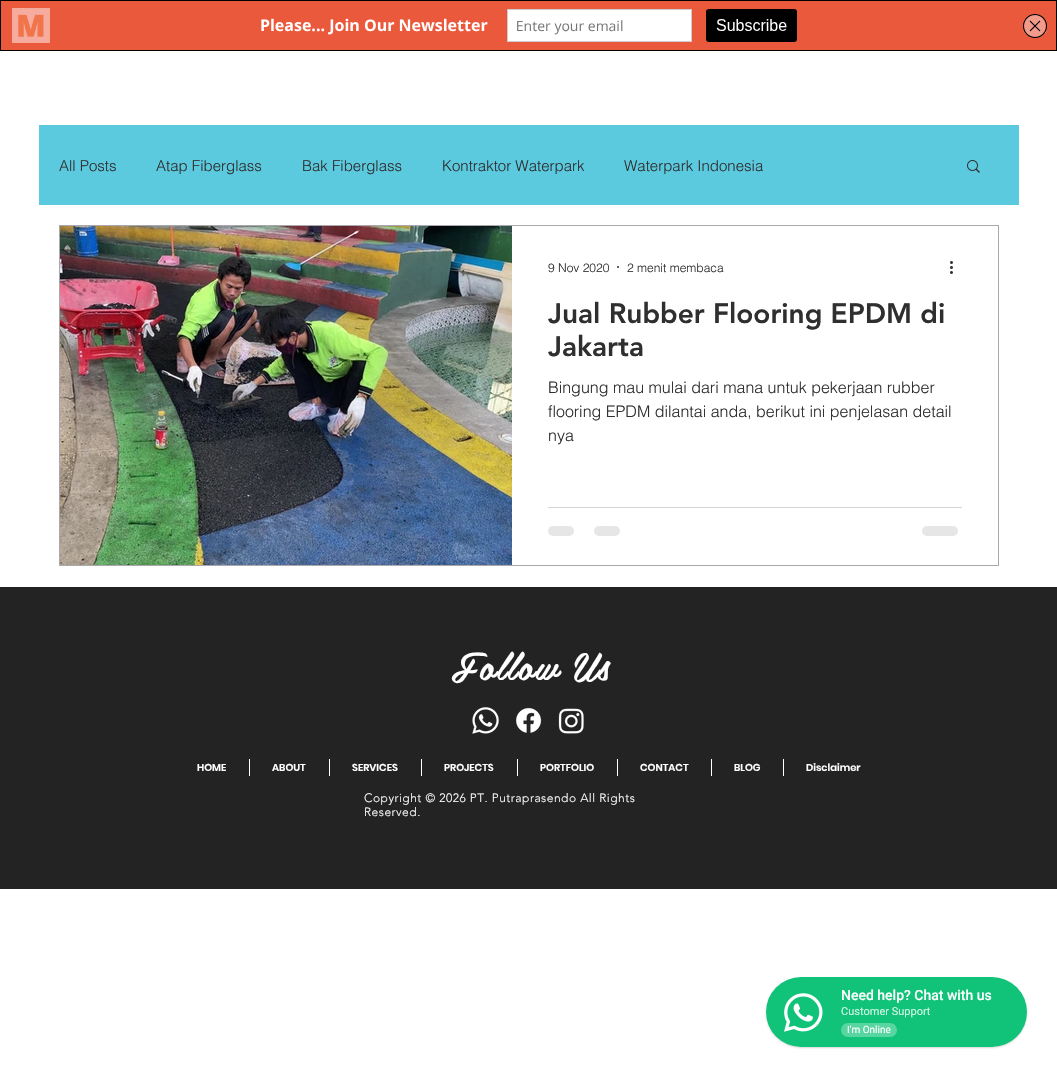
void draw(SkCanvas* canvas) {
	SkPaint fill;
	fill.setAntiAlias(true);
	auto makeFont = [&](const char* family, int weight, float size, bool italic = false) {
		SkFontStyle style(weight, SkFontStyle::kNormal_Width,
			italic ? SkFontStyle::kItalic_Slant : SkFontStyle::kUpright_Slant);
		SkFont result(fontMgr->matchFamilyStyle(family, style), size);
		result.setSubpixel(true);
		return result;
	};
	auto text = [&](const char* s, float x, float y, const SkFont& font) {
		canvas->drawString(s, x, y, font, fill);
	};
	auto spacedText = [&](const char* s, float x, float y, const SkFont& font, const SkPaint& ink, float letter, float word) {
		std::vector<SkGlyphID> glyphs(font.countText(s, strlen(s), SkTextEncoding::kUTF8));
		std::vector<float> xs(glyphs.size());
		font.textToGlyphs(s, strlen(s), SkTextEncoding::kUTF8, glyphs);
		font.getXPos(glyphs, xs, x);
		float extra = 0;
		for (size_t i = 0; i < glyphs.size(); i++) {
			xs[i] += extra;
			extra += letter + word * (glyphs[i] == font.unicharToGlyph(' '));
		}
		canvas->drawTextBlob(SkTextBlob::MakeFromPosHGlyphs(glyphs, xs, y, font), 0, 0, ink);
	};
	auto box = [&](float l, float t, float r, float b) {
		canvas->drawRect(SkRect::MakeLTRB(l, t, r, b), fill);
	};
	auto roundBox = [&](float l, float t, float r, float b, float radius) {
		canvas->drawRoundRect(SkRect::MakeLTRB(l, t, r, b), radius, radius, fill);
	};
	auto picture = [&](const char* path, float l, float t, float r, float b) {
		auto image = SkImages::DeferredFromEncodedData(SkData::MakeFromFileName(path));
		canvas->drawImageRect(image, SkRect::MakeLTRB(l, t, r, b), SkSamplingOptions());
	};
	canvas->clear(0xFFFFFFFF);
	picture("image0.png", 0, 0, 1057, 51);
	fill.setColor(0xFF5BC9DE);
	box(39, 125, 1019, 205);
	picture("image1.png", 967, 160, 980, 173);
	fill.setStyle(SkPaint::kStroke_Style);
	fill.setStrokeWidth(1);
	fill.setColor(0xFFAAA8AD);
	canvas->drawRect(SkRect::MakeLTRB(59.5f, 225.5f, 998.5f, 565.5f), fill);
	picture("image2.png", 60, 226, 512, 565);
	fill.setStyle(SkPaint::kFill_Style);
	fill.setColor(0xFF2F2F30);
	canvas->drawCircle(618, 267, 1, fill);
	picture("image3.png", 950, 261, 953, 274);
	fill.setColor(0xFFD5D5D6);
	box(548, 507, 962, 508);
	fill.setColor(0xFFE6E6E6);
	roundBox(548, 526, 574, 536, 5);
	roundBox(594, 526, 620, 536, 5);
	roundBox(922, 526, 958, 536, 5);
	fill.setColor(0xFF232323);
	box(0, 587, 1057, 889);
	picture("image4.png", 472, 707, 499, 734);
	picture("image5.png", 516, 707, 542, 733);
	picture("image6.png", 558, 708, 584, 734);
	fill.setColor(0xFFFFFFFF);
	box(249, 759, 250, 776);
	box(329, 759, 330, 776);
	box(421, 759, 422, 776);
	box(517, 759, 518, 776);
	box(617, 759, 618, 776);
	box(711, 759, 712, 776);
	box(783, 759, 784, 776);
	fill.setColor(0x26000000);
	fill.setMaskFilter(SkMaskFilter::MakeBlur(kNormal_SkBlurStyle, 1));
	canvas->drawRoundRect(SkRect::MakeLTRB(766, 978, 1027, 1048), 35, 35, fill);
	fill.setMaskFilter(nullptr);
	fill.setColor(0xFF10C379);
	roundBox(766, 977, 1027, 1047, 35);
	picture("image7.png", 784, 993, 823, 1032);
	fill.setColor(0xFF58D5A1);
	roundBox(841, 1023, 897, 1037, 7);
	auto font1 = makeFont("helvetica", 300, 15);
	fill.setColor(0xFF2F2F30);
	text("All Posts", 59, 171, font1);
	text("Atap Fiberglass", 156, 171, font1);
	text("Bak Fiberglass", 302, 171, font1);
	text("Kontraktor Waterpark", 442, 171, font1);
	text("Waterpark Indonesia", 624, 171, font1);
	auto font2 = makeFont("helvetica", 300, 12);
	text("9 Nov 2020", 548, 272, font2);
	text("2 menit membaca", 627, 272, font2);
	auto font3 = makeFont("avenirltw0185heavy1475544", 900, 28);
	text("Jual Rubber Flooring EPDM di", 548, 323, font3);
	text("Jakarta", 548, 356, font3);
	auto font4 = makeFont("helvetica", 300, 16);
	text("Bingung mau mulai dari mana untuk pekerjaan rubber", 548, 393, font4);
	text("flooring EPDM dilantai anda, berikut ini penjelasan detail", 548, 417, font4);
	text("nya", 548, 441, font4);
	auto font5 = makeFont("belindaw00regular", 400, 38);
	fill.setColor(0xFFFFFFFF);
	spacedText("Follow Us", 451, 680, font5, fill, 1.5f, 0);
	auto font6 = makeFont("Poppins", 600, 10);
	text("HOME", 197, 771, font6);
	text("ABOUT", 272, 771, font6);
	text("SERVICES", 352, 771, font6);
	text("PROJECTS", 444, 771, font6);
	text("PORTFOLIO", 540, 771, font6);
	text("CONTACT", 640, 771, font6);
	text("BLOG", 734, 771, font6);
	text("Disclaimer", 806, 771, font6);
	auto font7 = makeFont("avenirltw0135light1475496", 300, 12);
	spacedText("Copyright © 2026 PT. Putraprasendo All Rights", 364, 802, font7, fill, 0.5f, 0);
	spacedText("Reserved.", 364, 816, font7, fill, 0.5f, 0);
	auto font8 = makeFont("Roboto", 500, 14);
	text("Need help? Chat with us", 841, 1000, font8);
	auto font9 = makeFont("Roboto", 400, 11);
	fill.setColor(0xFFCFF3E4);
	text("Customer Support", 841, 1015, font9);
	auto font10 = makeFont("Roboto", 400, 10);
	fill.setColor(0xFFFFFFFF);
	text("I'm Online", 847, 1033, font10);
}
